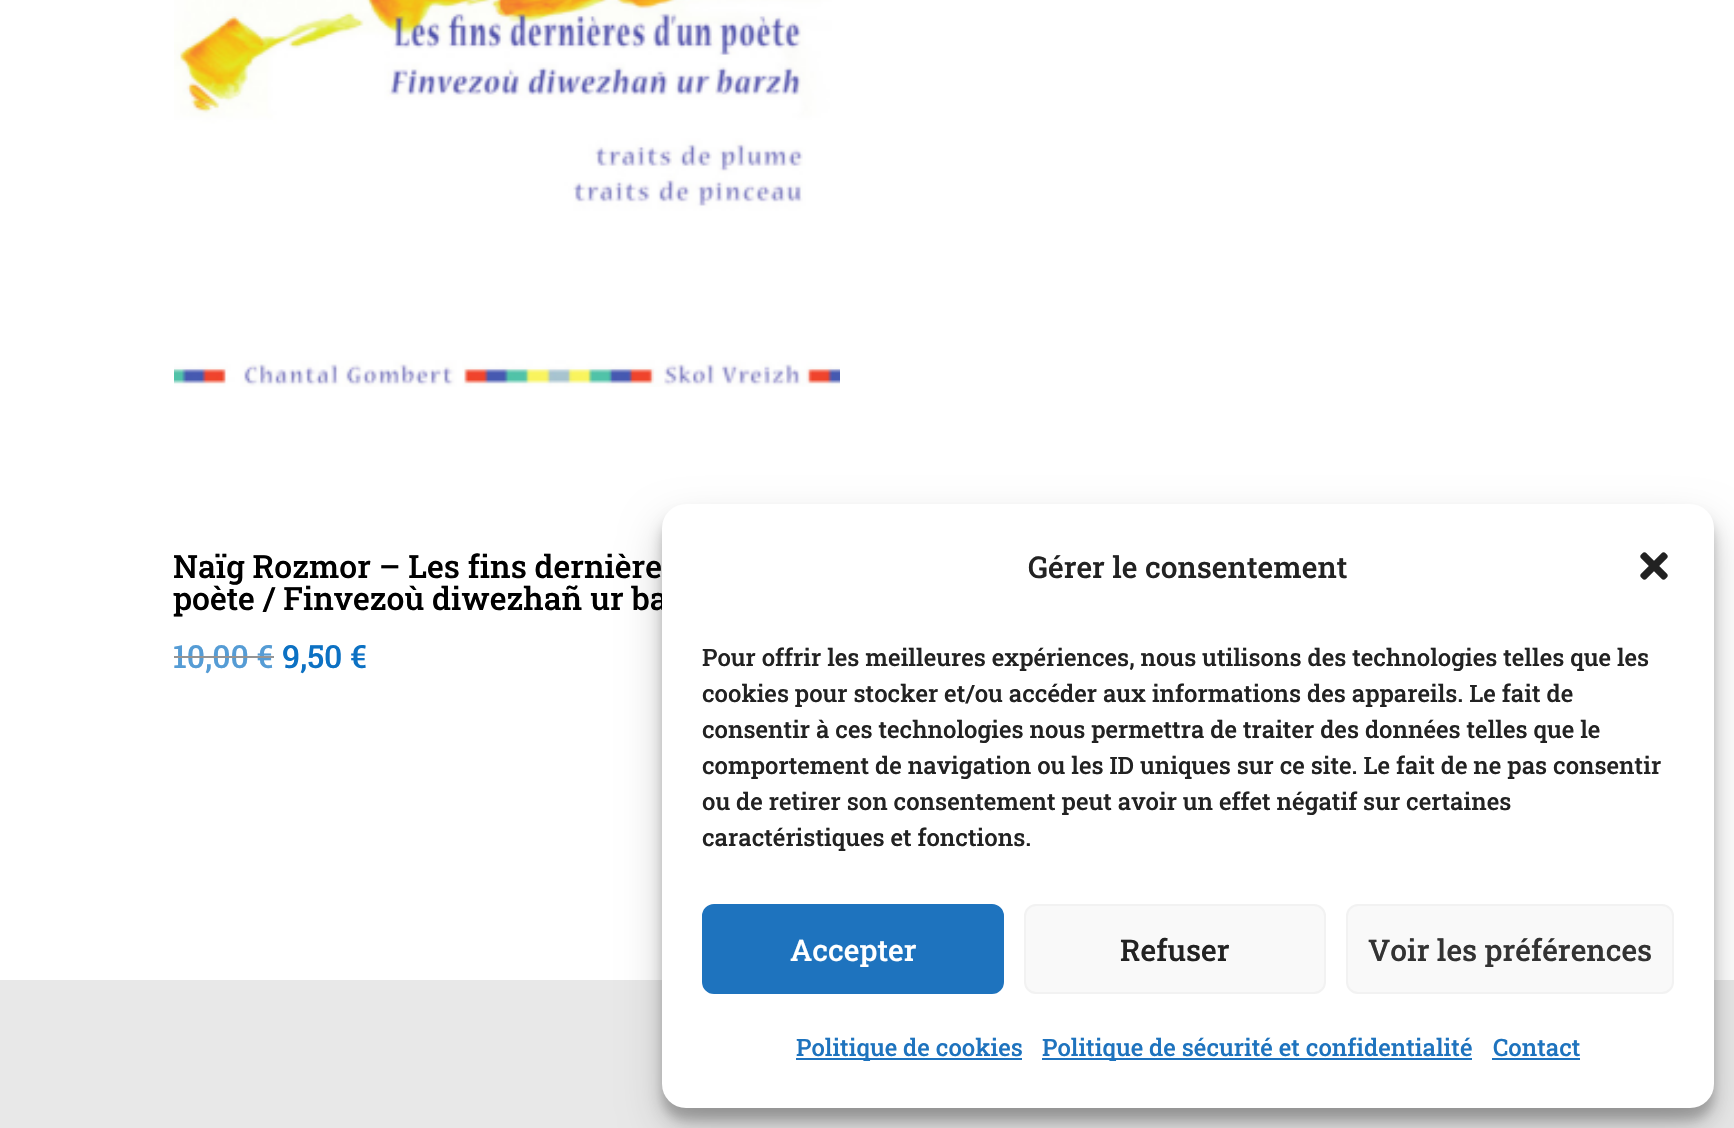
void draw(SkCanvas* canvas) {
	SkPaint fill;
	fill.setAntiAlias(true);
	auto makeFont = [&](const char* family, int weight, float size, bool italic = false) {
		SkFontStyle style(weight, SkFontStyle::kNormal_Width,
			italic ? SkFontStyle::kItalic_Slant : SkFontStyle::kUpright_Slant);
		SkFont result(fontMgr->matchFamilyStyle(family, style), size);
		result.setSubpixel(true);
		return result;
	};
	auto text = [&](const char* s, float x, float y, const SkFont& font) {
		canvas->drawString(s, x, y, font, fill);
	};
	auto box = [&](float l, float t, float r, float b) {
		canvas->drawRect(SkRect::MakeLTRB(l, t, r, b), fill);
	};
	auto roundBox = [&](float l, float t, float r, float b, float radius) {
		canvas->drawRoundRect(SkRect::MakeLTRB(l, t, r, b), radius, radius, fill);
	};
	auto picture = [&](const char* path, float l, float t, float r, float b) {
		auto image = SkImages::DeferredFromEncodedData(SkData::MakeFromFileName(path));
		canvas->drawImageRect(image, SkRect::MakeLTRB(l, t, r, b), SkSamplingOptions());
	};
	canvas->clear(0xFFFFFFFF);
	picture("image0.png", 174, 0, 840, 387);
	fill.setColor(0xFFE8E8E8);
	box(0, 980, 1734, 1128);
	fill.setColor(0x3B000000);
	fill.setMaskFilter(SkMaskFilter::MakeBlur(kNormal_SkBlurStyle, 6));
	canvas->drawRoundRect(SkRect::MakeLTRB(662, 516, 1714, 1120), 24, 24, fill);
	fill.setMaskFilter(nullptr);
	fill.setColor(0x30000000);
	fill.setMaskFilter(SkMaskFilter::MakeBlur(kNormal_SkBlurStyle, 20));
	canvas->drawRoundRect(SkRect::MakeLTRB(662, 524, 1714, 1128), 24, 24, fill);
	fill.setMaskFilter(nullptr);
	auto font1 = makeFont("Roboto Slab", 500, 32);
	fill.setColor(0xFF000000);
	text("Naïg Rozmor – Les fins dernière", 173, 578, font1);
	text("poète / Finvezoù diwezhañ ur ba", 173, 610, font1);
	fill.setColor(0xFF559CD5);
	text("10,00 €", 173, 668, font1);
	fill.setColor(0xFF949494);
	box(174, 656, 274, 658);
	fill.setColor(0xFF0C71C3);
	text("9,50 €", 282, 668, font1);
	fill.setColor(0xFFFFFFFF);
	roundBox(662, 504, 1714, 1108, 24);
	auto font2 = makeFont("Roboto Slab", 500, 30);
	fill.setColor(0xFF222222);
	text("Gérer le consentement", 1028, 578, font2);
	picture("image1.png", 1640, 552, 1668, 580);
	auto font3 = makeFont("Roboto Slab", 500, 24);
	text("Pour offrir les meilleures expériences, nous utilisons des technologies telles que les", 702, 666, font3);
	text("cookies pour stocker et/ou accéder aux informations des appareils. Le fait de", 702, 702, font3);
	text("consentir à ces technologies nous permettra de traiter des données telles que le", 702, 738, font3);
	text("comportement de navigation ou les ID uniques sur ce site. Le fait de ne pas consentir", 702, 774, font3);
	text("ou de retirer son consentement peut avoir un effet négatif sur certaines", 702, 810, font3);
	text("caractéristiques et fonctions.", 702, 846, font3);
	fill.setColor(0xFF1E73BE);
	canvas->drawRoundRect(SkRect::MakeLTRB(703, 905, 1003, 993), 11, 11, fill);
	fill.setStyle(SkPaint::kStroke_Style);
	fill.setStrokeWidth(2);
	canvas->drawRoundRect(SkRect::MakeLTRB(703, 905, 1003, 993), 11, 11, fill);
	fill.setStyle(SkPaint::kFill_Style);
	fill.setColor(0xFFFFFFFF);
	text("Accepter", 790, 961, font2);
	fill.setColor(0xFFF9F9F9);
	canvas->drawRoundRect(SkRect::MakeLTRB(1025, 905, 1325, 993), 11, 11, fill);
	fill.setStyle(SkPaint::kStroke_Style);
	fill.setColor(0xFFF2F2F2);
	canvas->drawRoundRect(SkRect::MakeLTRB(1025, 905, 1325, 993), 11, 11, fill);
	fill.setStyle(SkPaint::kFill_Style);
	fill.setColor(0xFF222222);
	text("Refuser", 1120, 961, font2);
	fill.setColor(0xFFF9F9F9);
	canvas->drawRoundRect(SkRect::MakeLTRB(1347, 905, 1673, 993), 11, 11, fill);
	fill.setStyle(SkPaint::kStroke_Style);
	fill.setColor(0xFFF2F2F2);
	canvas->drawRoundRect(SkRect::MakeLTRB(1347, 905, 1673, 993), 11, 11, fill);
	fill.setStyle(SkPaint::kFill_Style);
	fill.setColor(0xFF333333);
	text("Voir les préférences", 1368, 961, font2);
	fill.setColor(0xFF1E73BE);
	box(796, 1058, 1022, 1060);
	text("Politique de cookies", 796, 1056, font3);
	box(1042, 1058, 1472, 1060);
	text("Politique de sécurité et confidentialité", 1042, 1056, font3);
	text("Contact", 1493, 1056, font3);
	box(1492, 1058, 1580, 1060);
}
